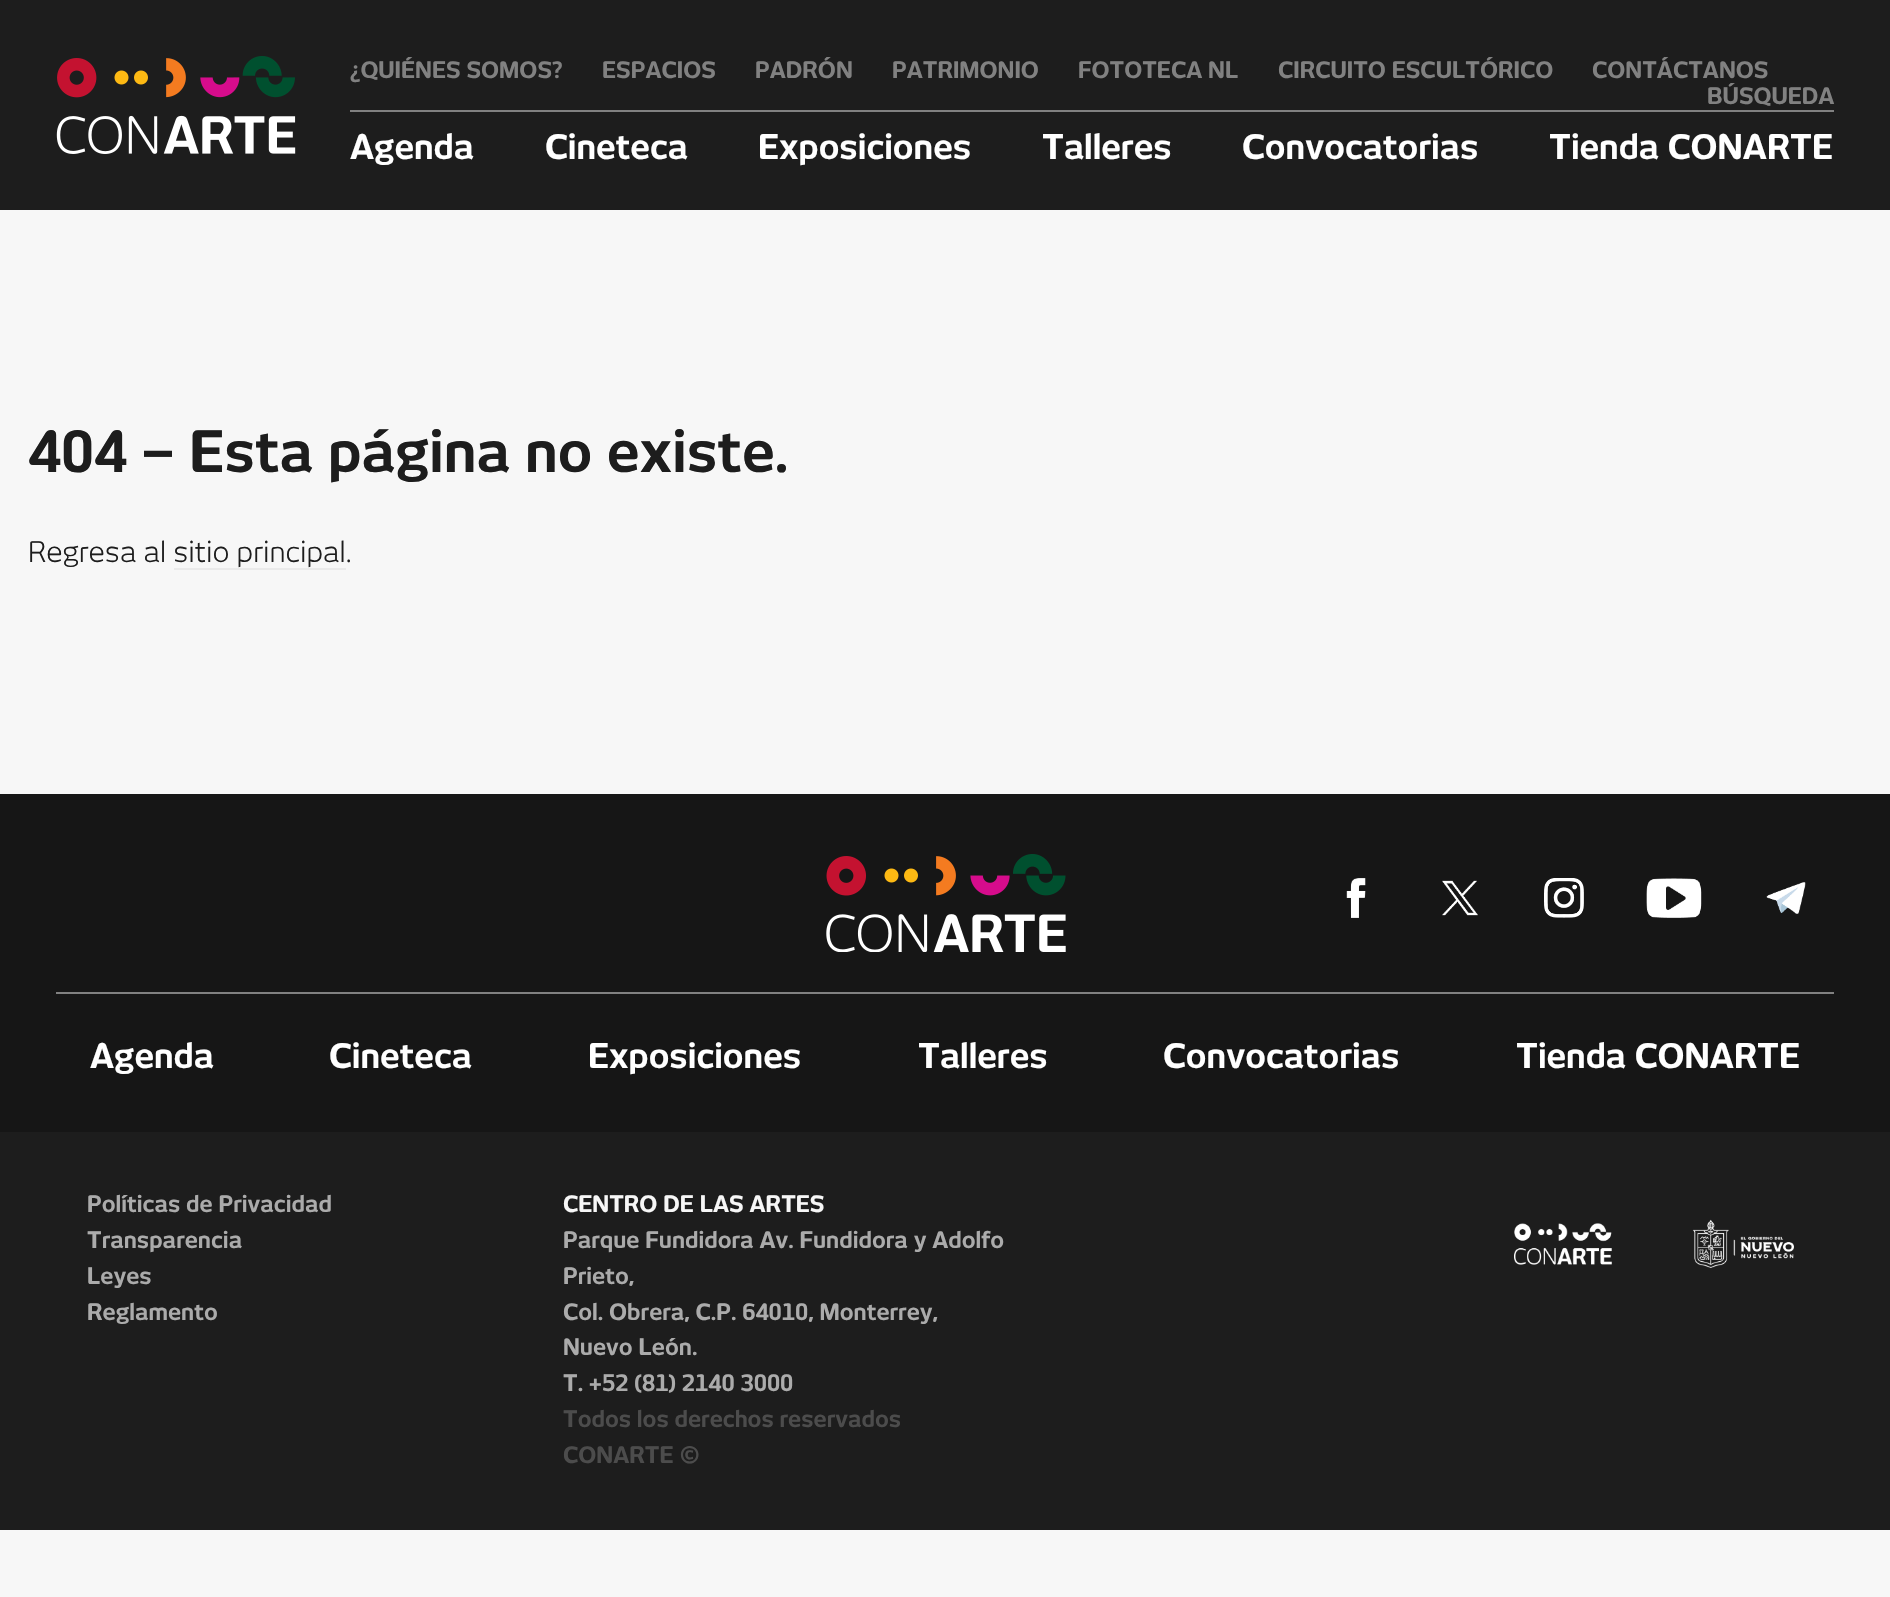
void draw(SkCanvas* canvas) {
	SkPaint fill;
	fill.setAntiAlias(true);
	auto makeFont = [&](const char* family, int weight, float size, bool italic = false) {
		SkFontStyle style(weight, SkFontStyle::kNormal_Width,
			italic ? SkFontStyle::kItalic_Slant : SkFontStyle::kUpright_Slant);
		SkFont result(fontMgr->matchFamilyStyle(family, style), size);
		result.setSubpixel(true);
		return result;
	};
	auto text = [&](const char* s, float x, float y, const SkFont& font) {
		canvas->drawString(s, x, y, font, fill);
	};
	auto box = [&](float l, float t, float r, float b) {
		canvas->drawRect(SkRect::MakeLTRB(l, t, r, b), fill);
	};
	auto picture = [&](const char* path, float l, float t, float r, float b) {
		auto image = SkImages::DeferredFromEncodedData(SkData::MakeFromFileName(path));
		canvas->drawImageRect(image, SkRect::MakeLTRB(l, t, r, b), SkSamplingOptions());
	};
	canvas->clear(0xFFF7F7F7);
	fill.setColor(0xFF1D1D1D);
	box(0, 0, 1890, 210);
	picture("image0.png", 56, 56, 296, 154);
	fill.setColor(0xFF818181);
	box(350, 110, 1834, 112);
	fill.setColor(0xFFEAEAEA);
	box(174, 568, 346, 570);
	fill.setColor(0xFF161616);
	box(0, 794, 1890, 1132);
	picture("image1.png", 826, 854, 1066, 952);
	picture("image2.png", 1346, 878, 1366, 918);
	picture("image3.png", 1442, 880, 1478, 916);
	picture("image4.png", 1544, 878, 1584, 918);
	picture("image5.png", 1646, 878, 1702, 918);
	picture("image6.png", 1766, 882, 1806, 914);
	fill.setColor(0xFF818181);
	box(56, 992, 1834, 994);
	fill.setColor(0xFF1D1D1D);
	box(0, 1132, 1890, 1530);
	picture("image7.png", 1514, 1219, 1794, 1268);
	auto font1 = makeFont("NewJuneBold", 700, 22.4f);
	fill.setColor(0xFF818181);
	text("¿QUIÉNES SOMOS?", 350, 78, font1);
	text("ESPACIOS", 602, 78, font1);
	text("PADRÓN", 755, 78, font1);
	text("PATRIMONIO", 892, 78, font1);
	text("FOTOTECA NL", 1078, 78, font1);
	text("CIRCUITO ESCULTÓRICO", 1278, 78, font1);
	text("CONTÁCTANOS", 1592, 78, font1);
	text("BÚSQUEDA", 1707, 104, font1);
	auto font2 = makeFont("NewJuneBold", 700, 33.5f);
	fill.setColor(0xFFFFFFFF);
	text("Agenda", 350, 159, font2);
	text("Cineteca", 545, 159, font2);
	text("Exposiciones", 758, 159, font2);
	text("Talleres", 1042, 159, font2);
	text("Convocatorias", 1242, 159, font2);
	text("Tienda CONARTE", 1549, 159, font2);
	auto font3 = makeFont("NewJuneBold", 700, 56);
	fill.setColor(0xFF1D1D1D);
	text("404 – Esta página no existe.", 28, 472, font3);
	auto font4 = makeFont("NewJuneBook", 400, 28);
	text("Regresa al sitio principal.", 28, 562, font4);
	fill.setColor(0xFFFFFFFF);
	text("Agenda", 90, 1068, font2);
	text("Cineteca", 329, 1068, font2);
	text("Exposiciones", 588, 1068, font2);
	text("Talleres", 918, 1068, font2);
	text("Convocatorias", 1163, 1068, font2);
	text("Tienda CONARTE", 1516, 1068, font2);
	fill.setColor(0xFFABABAB);
	text("Políticas de Privacidad", 87, 1212, font1);
	text("Transparencia", 87, 1248, font1);
	text("Leyes", 87, 1284, font1);
	text("Reglamento", 87, 1320, font1);
	fill.setColor(0xFFF7F7F7);
	text("CENTRO DE LAS ARTES", 563, 1212, font1);
	fill.setColor(0xFFABABAB);
	text("Parque Fundidora Av. Fundidora y Adolfo", 563, 1248, font1);
	text("Prieto,", 563, 1284, font1);
	text("Col. Obrera, C.P. 64010, Monterrey,", 563, 1320, font1);
	text("Nuevo León.", 563, 1355, font1);
	text("T. +52 (81) 2140 3000", 563, 1391, font1);
	fill.setColor(0xFF4C4C4C);
	text("Todos los derechos reservados", 563, 1427, font1);
	text("CONARTE ©", 563, 1463, font1);
}
